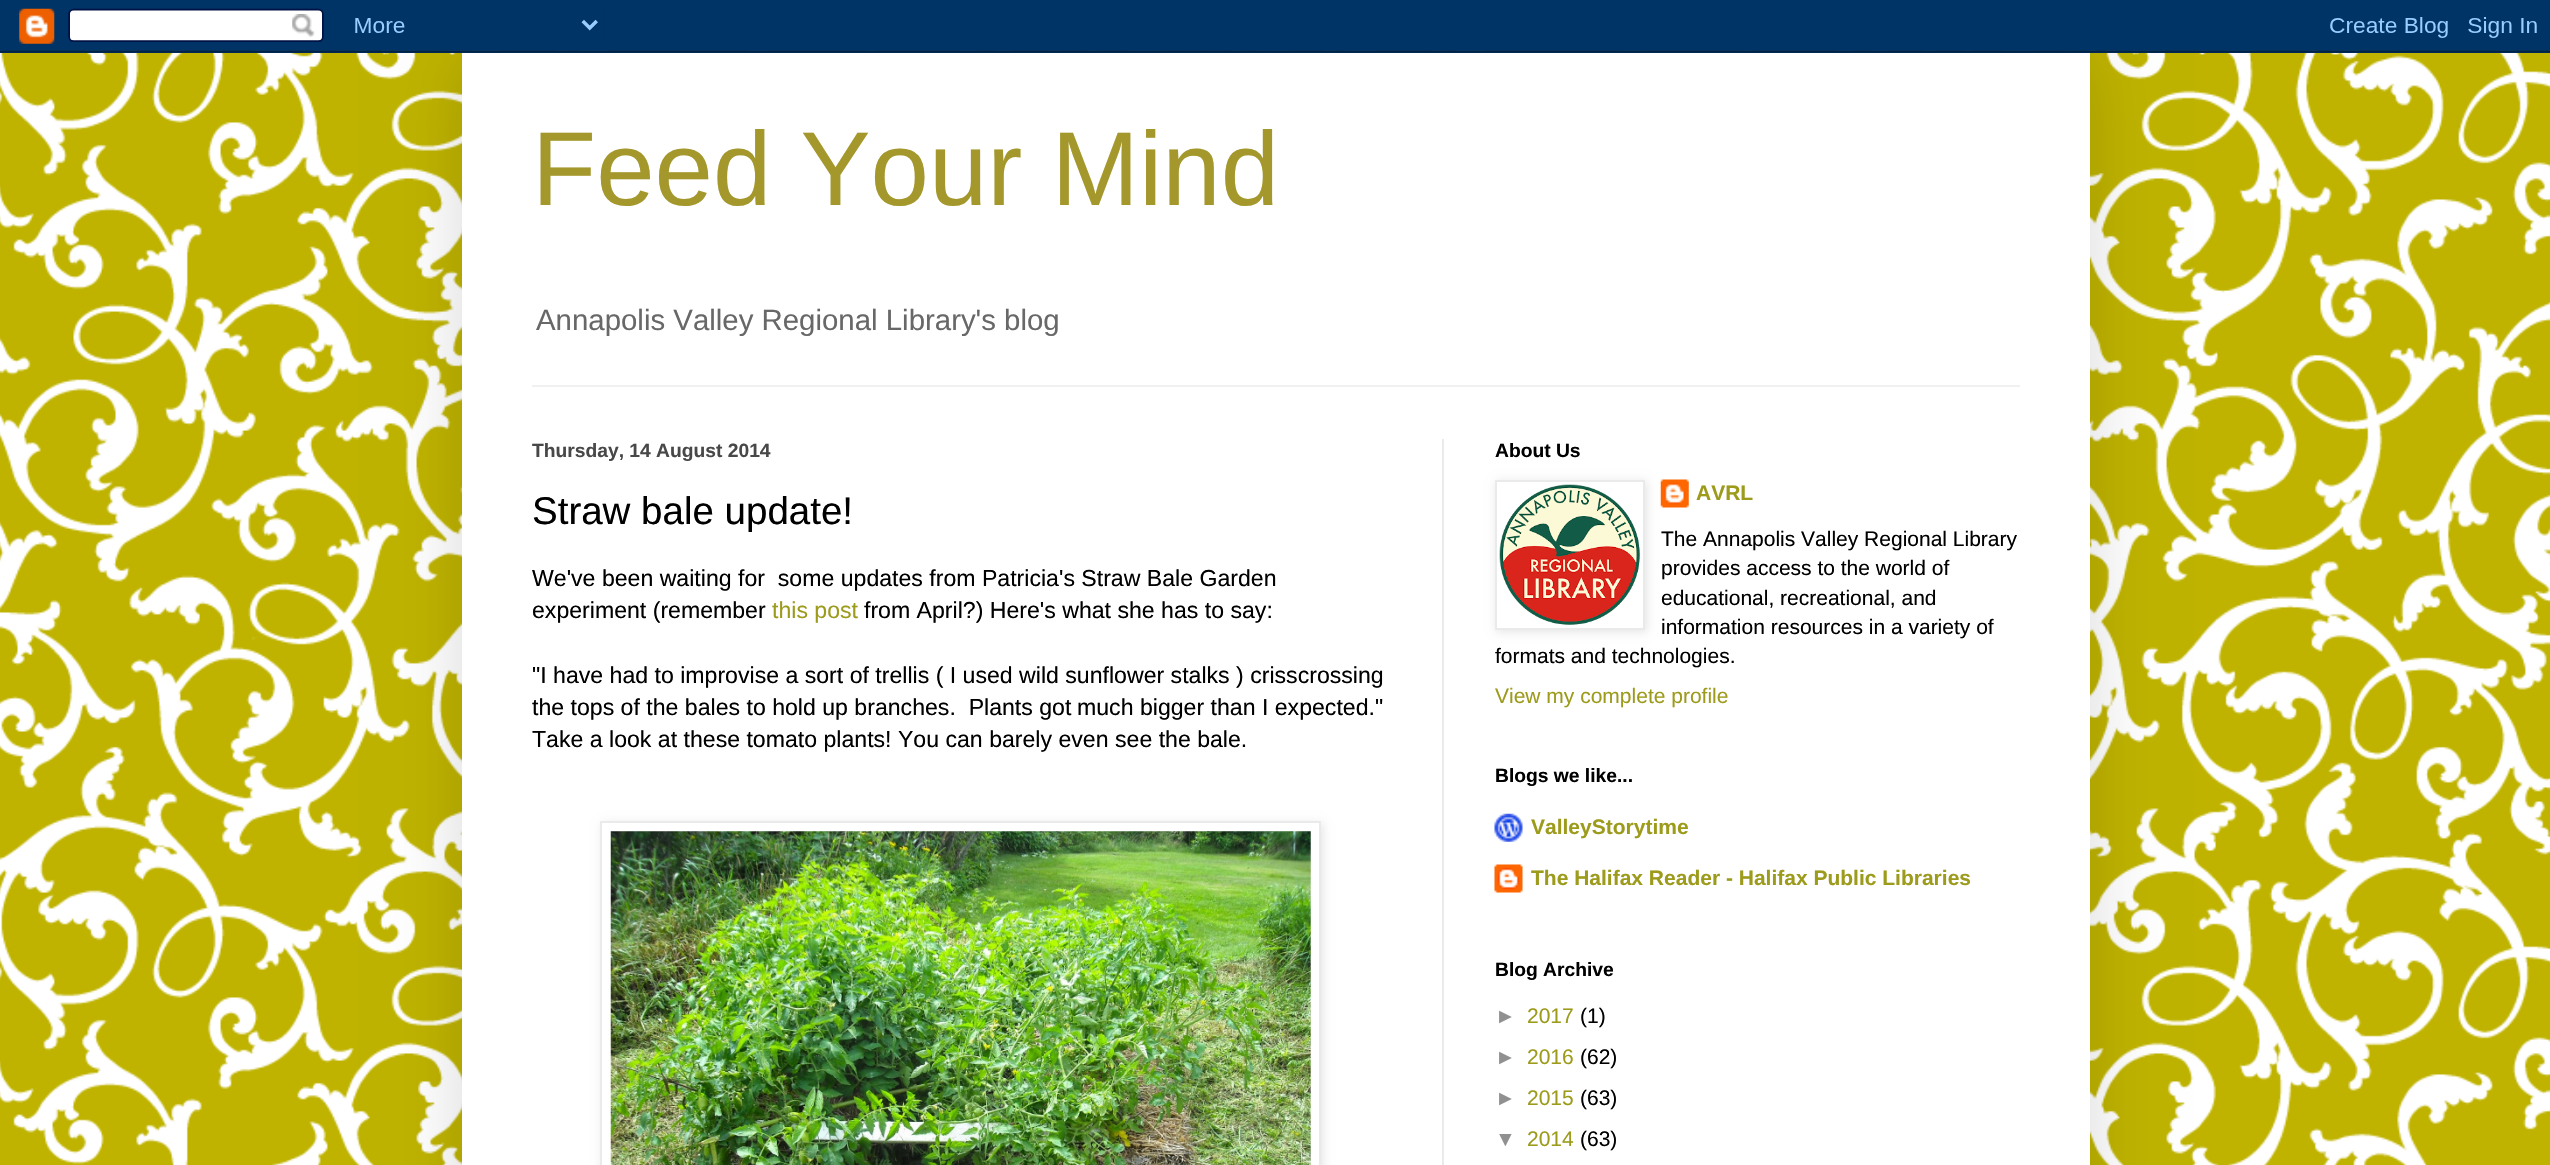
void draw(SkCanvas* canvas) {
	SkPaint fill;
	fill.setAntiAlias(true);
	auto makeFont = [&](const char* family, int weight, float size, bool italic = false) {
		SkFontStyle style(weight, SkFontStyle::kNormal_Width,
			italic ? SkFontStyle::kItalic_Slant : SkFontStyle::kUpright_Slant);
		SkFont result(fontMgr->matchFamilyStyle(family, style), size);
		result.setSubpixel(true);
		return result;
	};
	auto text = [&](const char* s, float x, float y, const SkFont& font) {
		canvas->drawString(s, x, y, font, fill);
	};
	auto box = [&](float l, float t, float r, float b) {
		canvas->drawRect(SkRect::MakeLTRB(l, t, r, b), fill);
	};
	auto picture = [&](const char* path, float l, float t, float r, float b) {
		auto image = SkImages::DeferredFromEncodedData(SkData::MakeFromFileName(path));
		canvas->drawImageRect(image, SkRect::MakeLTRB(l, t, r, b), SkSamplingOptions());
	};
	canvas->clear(0xFFFFFFFF);
	picture("image0.png", 0, 50, 2550, 1165);
	fill.setColor(0x26000000);
	fill.setMaskFilter(SkMaskFilter::MakeBlur(kNormal_SkBlurStyle, 35));
	canvas->drawRect(SkRect::MakeLTRB(462, 53, 2090, 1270), fill);
	fill.setMaskFilter(nullptr);
	picture("image1.png", 0, 0, 2550, 53);
	fill.setColor(0xFFFFFFFF);
	box(462, 53, 2090, 1165);
	fill.setColor(0xFFF0F0F0);
	box(532, 385, 2020, 387);
	fill.setColor(0xFFEAEAEA);
	box(1442, 439, 1444, 1165);
	fill.setColor(0x1A000000);
	fill.setMaskFilter(SkMaskFilter::MakeBlur(kNormal_SkBlurStyle, 4.5f));
	canvas->drawRect(SkRect::MakeLTRB(602, 823, 1323, 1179), fill);
	fill.setMaskFilter(nullptr);
	fill.setColor(0xFFFFFFFF);
	canvas->drawRect(SkRect::MakeLTRB(601, 822, 1320, 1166), fill);
	fill.setStyle(SkPaint::kStroke_Style);
	fill.setStrokeWidth(2);
	fill.setColor(0xFFEAEAEA);
	canvas->drawRect(SkRect::MakeLTRB(601, 822, 1320, 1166), fill);
	picture("image2.png", 610, 831, 1311, 1165);
	picture("image4.png", 1660, 479, 1689, 508);
	canvas->save();
	canvas->clipPath(SkPathBuilder(SkPathFillType::kEvenOdd).moveTo(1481, 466).lineTo(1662, 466).lineTo(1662, 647).lineTo(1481, 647).close().moveTo(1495, 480).lineTo(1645, 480).lineTo(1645, 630).lineTo(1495, 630).close().detach(), true);
	fill.setStyle(SkPaint::kFill_Style);
	fill.setColor(0x1A000000);
	fill.setMaskFilter(SkMaskFilter::MakeBlur(kNormal_SkBlurStyle, 4.5f));
	canvas->drawRect(SkRect::MakeLTRB(1496, 481, 1647, 632), fill);
	fill.setMaskFilter(nullptr);
	canvas->restore();
	fill.setStyle(SkPaint::kStroke_Style);
	fill.setColor(0xFFEAEAEA);
	canvas->drawRect(SkRect::MakeLTRB(1496, 481, 1644, 629), fill);
	picture("image3.png", 1499, 484, 1640, 625);
	picture("image5.png", 1494, 813, 1523, 842);
	picture("image6.png", 1494, 864, 1523, 893);
	auto font1 = makeFont("Liberation Sans", 400, 105);
	fill.setStyle(SkPaint::kFill_Style);
	fill.setColor(0xFFA4982C);
	text("Feed Your Mind", 532, 205, font1);
	auto font2 = makeFont("Liberation Sans", 400, 29.4f);
	fill.setColor(0xFF686868);
	text("Annapolis Valley Regional Library's blog", 536, 330, font2);
	auto font3 = makeFont("Liberation Sans", 700, 19.25f);
	fill.setColor(0xFF484848);
	text("Thursday, 14 August 2014", 532, 457, font3);
	auto font4 = makeFont("Liberation Sans", 400, 38.5f);
	fill.setColor(0xFF000000);
	text("Straw bale update!", 532, 524, font4);
	auto font5 = makeFont("Liberation Sans", 400, 23.1f);
	text("We've been waiting for  some updates from Patricia's Straw Bale Garden", 532, 586, font5);
	text("experiment (remember", 532, 618, font5);
	fill.setColor(0xFF9D9B1C);
	text("this post", 772, 618, font5);
	fill.setColor(0xFF000000);
	text("from April?) Here's what she has to say:", 864, 618, font5);
	text("\"I have had to improvise a sort of trellis ( I used wild sunflower stalks ) crisscrossing", 532, 683, font5);
	text("the tops of the bales to hold up branches.  Plants got", 532, 715, font5);
	text("much bigger than I expected.\"", 1077, 715, font5);
	text("Take a look at these tomato plants! You can barely even see the bale.", 532, 747, font5);
	text("About Us", 1495, 457, font3);
	auto font6 = makeFont("Liberation Sans", 700, 21);
	fill.setColor(0xFF9D9B1C);
	text("AVRL", 1696, 500, font6);
	auto font7 = makeFont("Liberation Sans", 400, 21);
	fill.setColor(0xFF000000);
	text("The Annapolis Valley Regional Library", 1661, 546, font7);
	text("provides access to the world of", 1661, 575, font7);
	text("educational, recreational, and", 1661, 605, font7);
	text("information resources in a variety of", 1661, 634, font7);
	text("formats and technologies.", 1495, 663, font7);
	fill.setColor(0xFF9D9B1C);
	text("View my complete profile", 1495, 703, font7);
	fill.setColor(0xFF000000);
	text("Blogs we like...", 1495, 782, font3);
	fill.setColor(0xFF9D9B1C);
	text("ValleyStorytime", 1531, 834, font6);
	text("The Halifax Reader - Halifax Public Libraries", 1531, 885, font6);
	fill.setColor(0xFF000000);
	text("Blog Archive", 1495, 976, font3);
	fill.setColor(0xFF909090);
	text("►", 1495, 1023, font7);
	fill.setColor(0xFF9D9B1C);
	text("2017", 1527, 1023, font7);
	fill.setColor(0xFF000000);
	text("(1)", 1580, 1023, font7);
	fill.setColor(0xFF909090);
	text("►", 1495, 1064, font7);
	fill.setColor(0xFF9D9B1C);
	text("2016", 1527, 1064, font7);
	fill.setColor(0xFF000000);
	text("(62)", 1580, 1064, font7);
	fill.setColor(0xFF909090);
	text("►", 1495, 1105, font7);
	fill.setColor(0xFF9D9B1C);
	text("2015", 1527, 1105, font7);
	fill.setColor(0xFF000000);
	text("(63)", 1580, 1105, font7);
	fill.setColor(0xFF909090);
	text("▼", 1495, 1146, font7);
	fill.setColor(0xFF9D9B1C);
	text("2014", 1527, 1146, font7);
	fill.setColor(0xFF000000);
	text("(63)", 1580, 1146, font7);
}
